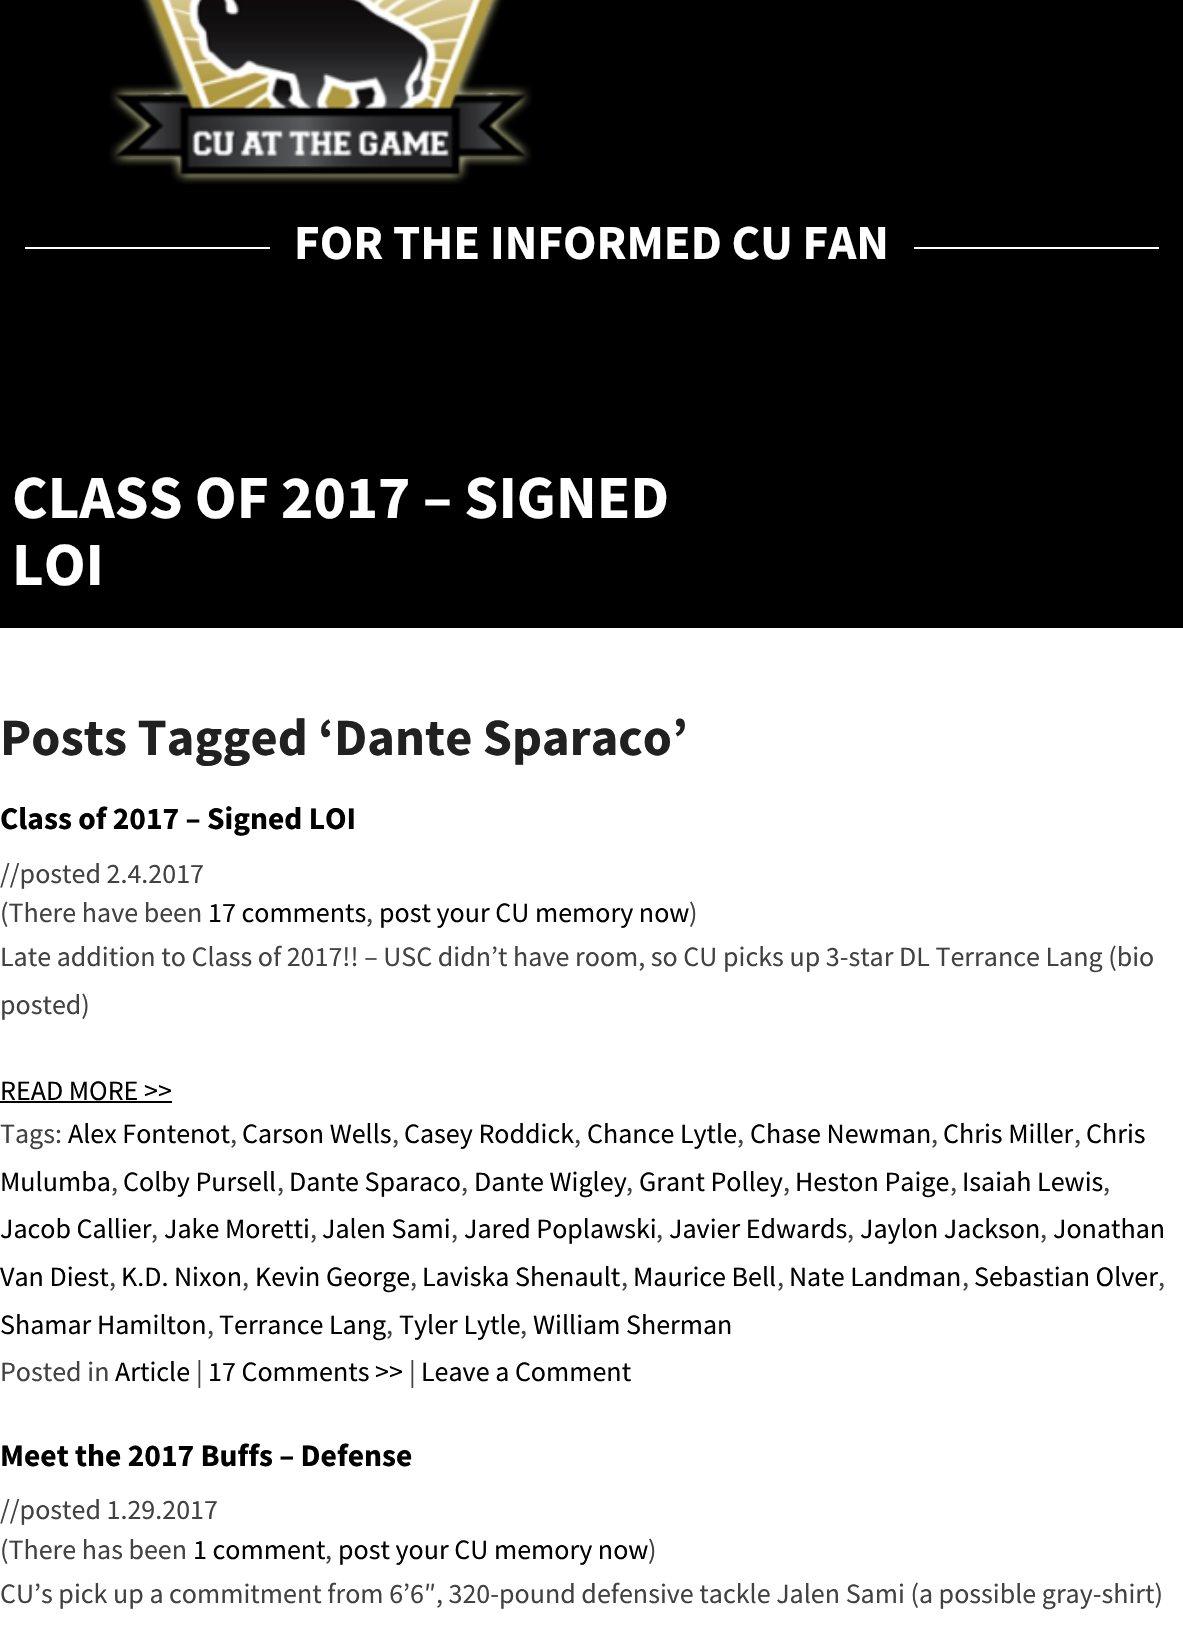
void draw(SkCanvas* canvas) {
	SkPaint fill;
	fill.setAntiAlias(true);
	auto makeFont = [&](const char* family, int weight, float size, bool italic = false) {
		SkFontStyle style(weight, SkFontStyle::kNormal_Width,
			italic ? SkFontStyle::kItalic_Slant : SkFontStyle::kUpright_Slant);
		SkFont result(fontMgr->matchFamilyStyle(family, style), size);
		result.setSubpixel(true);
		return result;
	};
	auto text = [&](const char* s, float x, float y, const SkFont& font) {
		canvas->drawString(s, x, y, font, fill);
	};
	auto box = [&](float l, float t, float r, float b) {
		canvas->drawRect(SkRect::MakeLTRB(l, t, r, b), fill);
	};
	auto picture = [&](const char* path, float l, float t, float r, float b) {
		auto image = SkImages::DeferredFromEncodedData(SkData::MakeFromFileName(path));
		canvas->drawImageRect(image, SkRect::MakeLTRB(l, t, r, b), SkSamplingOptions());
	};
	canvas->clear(0xFFFFFFFF);
	fill.setColor(0xFF000000);
	box(0, 0, 1183, 628);
	picture("image0.png", 109, 0, 532, 185);
	fill.setColor(0xFFFFFFFF);
	box(25, 247, 270, 249);
	box(914, 247, 1159, 249);
	fill.setColor(0xFF000000);
	box(0, 1101, 172, 1103);
	auto font1 = makeFont("Source Sans Pro", 700, 49);
	fill.setColor(0xFFFFFFFF);
	text("FOR THE INFORMED CU FAN", 294, 259, font1);
	auto font2 = makeFont("Source Sans Pro", 700, 61.25f);
	text("CLASS OF 2017 – SIGNED", 12, 518, font2);
	text("LOI", 12, 585, font2);
	auto font3 = makeFont("Source Sans Pro", 700, 52.5f);
	fill.setColor(0xFF212121);
	text("Posts Tagged ‘Dante Sparaco’", 0, 755, font3);
	auto font4 = makeFont("Source Sans Pro", 700, 31.5f);
	fill.setColor(0xFF000000);
	text("Class of 2017 – Signed LOI", 0, 829, font4);
	auto font5 = makeFont("Source Sans Pro", 400, 28);
	fill.setColor(0xFF424242);
	text("//posted 2.4.2017", 0, 883, font5);
	text("(There have been", 0, 922, font5);
	fill.setColor(0xFF000000);
	text("17 comments", 208, 922, font5);
	fill.setColor(0xFF424242);
	text(",", 366, 922, font5);
	fill.setColor(0xFF000000);
	text("post your CU memory now", 379, 922, font5);
	fill.setColor(0xFF424242);
	text(")", 689, 922, font5);
	text("Late addition to Class of 2017!! – USC didn’t have room, so CU picks up 3-star DL Terrance Lang (bio", 0, 966, font5);
	text("posted)", 0, 1014, font5);
	fill.setColor(0xFF000000);
	text("READ MORE >>", 0, 1100, font5);
	fill.setColor(0xFF424242);
	text("Tags:", 0, 1143, font5);
	fill.setColor(0xFF000000);
	text("Alex Fontenot", 68, 1143, font5);
	fill.setColor(0xFF424242);
	text(",", 230, 1143, font5);
	fill.setColor(0xFF000000);
	text("Carson Wells", 242, 1143, font5);
	fill.setColor(0xFF424242);
	text(",", 392, 1143, font5);
	fill.setColor(0xFF000000);
	text("Casey Roddick", 404, 1143, font5);
	fill.setColor(0xFF424242);
	text(",", 574, 1143, font5);
	fill.setColor(0xFF000000);
	text("Chance Lytle", 587, 1143, font5);
	fill.setColor(0xFF424242);
	text(",", 737, 1143, font5);
	fill.setColor(0xFF000000);
	text("Chase Newman", 750, 1143, font5);
	fill.setColor(0xFF424242);
	text(",", 931, 1143, font5);
	fill.setColor(0xFF000000);
	text("Chris Miller", 943, 1143, font5);
	fill.setColor(0xFF424242);
	text(",", 1074, 1143, font5);
	fill.setColor(0xFF000000);
	text("Chris", 1086, 1143, font5);
	text("Mulumba", 0, 1191, font5);
	fill.setColor(0xFF424242);
	text(",", 111, 1191, font5);
	fill.setColor(0xFF000000);
	text("Colby Pursell", 123, 1191, font5);
	fill.setColor(0xFF424242);
	text(",", 277, 1191, font5);
	fill.setColor(0xFF000000);
	text("Dante Sparaco", 289, 1191, font5);
	fill.setColor(0xFF424242);
	text(",", 461, 1191, font5);
	fill.setColor(0xFF000000);
	text("Dante Wigley", 474, 1191, font5);
	fill.setColor(0xFF424242);
	text(",", 626, 1191, font5);
	fill.setColor(0xFF000000);
	text("Grant Polley", 639, 1191, font5);
	fill.setColor(0xFF424242);
	text(",", 783, 1191, font5);
	fill.setColor(0xFF000000);
	text("Heston Paige", 795, 1191, font5);
	fill.setColor(0xFF424242);
	text(",", 950, 1191, font5);
	fill.setColor(0xFF000000);
	text("Isaiah Lewis", 962, 1191, font5);
	fill.setColor(0xFF424242);
	text(",", 1103, 1191, font5);
	fill.setColor(0xFF000000);
	text("Jacob Callier", 0, 1238, font5);
	fill.setColor(0xFF424242);
	text(",", 151, 1238, font5);
	fill.setColor(0xFF000000);
	text("Jake Moretti", 164, 1238, font5);
	fill.setColor(0xFF424242);
	text(",", 310, 1238, font5);
	fill.setColor(0xFF000000);
	text("Jalen Sami", 322, 1238, font5);
	fill.setColor(0xFF424242);
	text(",", 451, 1238, font5);
	fill.setColor(0xFF000000);
	text("Jared Poplawski", 464, 1238, font5);
	fill.setColor(0xFF424242);
	text(",", 656, 1238, font5);
	fill.setColor(0xFF000000);
	text("Javier Edwards", 669, 1238, font5);
	fill.setColor(0xFF424242);
	text(",", 847, 1238, font5);
	fill.setColor(0xFF000000);
	text("Jaylon Jackson", 860, 1238, font5);
	fill.setColor(0xFF424242);
	text(",", 1040, 1238, font5);
	fill.setColor(0xFF000000);
	text("Jonathan", 1053, 1238, font5);
	text("Van Diest", 0, 1286, font5);
	fill.setColor(0xFF424242);
	text(",", 109, 1286, font5);
	fill.setColor(0xFF000000);
	text("K.D. Nixon", 121, 1286, font5);
	fill.setColor(0xFF424242);
	text(",", 242, 1286, font5);
	fill.setColor(0xFF000000);
	text("Kevin George", 255, 1286, font5);
	fill.setColor(0xFF424242);
	text(",", 410, 1286, font5);
	fill.setColor(0xFF000000);
	text("Laviska Shenault", 422, 1286, font5);
	fill.setColor(0xFF424242);
	text(",", 621, 1286, font5);
	fill.setColor(0xFF000000);
	text("Maurice Bell", 633, 1286, font5);
	fill.setColor(0xFF424242);
	text(",", 777, 1286, font5);
	fill.setColor(0xFF000000);
	text("Nate Landman", 789, 1286, font5);
	fill.setColor(0xFF424242);
	text(",", 962, 1286, font5);
	fill.setColor(0xFF000000);
	text("Sebastian Olver", 974, 1286, font5);
	fill.setColor(0xFF424242);
	text(",", 1158, 1286, font5);
	fill.setColor(0xFF000000);
	text("Shamar Hamilton", 0, 1334, font5);
	fill.setColor(0xFF424242);
	text(",", 207, 1334, font5);
	fill.setColor(0xFF000000);
	text("Terrance Lang", 219, 1334, font5);
	fill.setColor(0xFF424242);
	text(",", 386, 1334, font5);
	fill.setColor(0xFF000000);
	text("Tyler Lytle", 399, 1334, font5);
	fill.setColor(0xFF424242);
	text(",", 520, 1334, font5);
	fill.setColor(0xFF000000);
	text("William Sherman", 533, 1334, font5);
	fill.setColor(0xFF424242);
	text("Posted in", 0, 1381, font5);
	fill.setColor(0xFF000000);
	text("Article", 115, 1381, font5);
	fill.setColor(0xFF424242);
	text("|", 196, 1381, font5);
	fill.setColor(0xFF000000);
	text("17 Comments >>", 208, 1381, font5);
	fill.setColor(0xFF424242);
	text("|", 409, 1381, font5);
	fill.setColor(0xFF000000);
	text("Leave a Comment", 421, 1381, font5);
	text("Meet the 2017 Buffs – Defense", 0, 1466, font4);
	fill.setColor(0xFF424242);
	text("//posted 1.29.2017", 0, 1519, font5);
	text("(There has been", 0, 1559, font5);
	fill.setColor(0xFF000000);
	text("1 comment", 193, 1559, font5);
	fill.setColor(0xFF424242);
	text(",", 325, 1559, font5);
	fill.setColor(0xFF000000);
	text("post your CU memory now", 338, 1559, font5);
	fill.setColor(0xFF424242);
	text(")", 648, 1559, font5);
	text("CU’s pick up a commitment from 6’6″, 320-pound defensive tackle Jalen Sami (a possible gray-shirt)", 0, 1603, font5);
}
